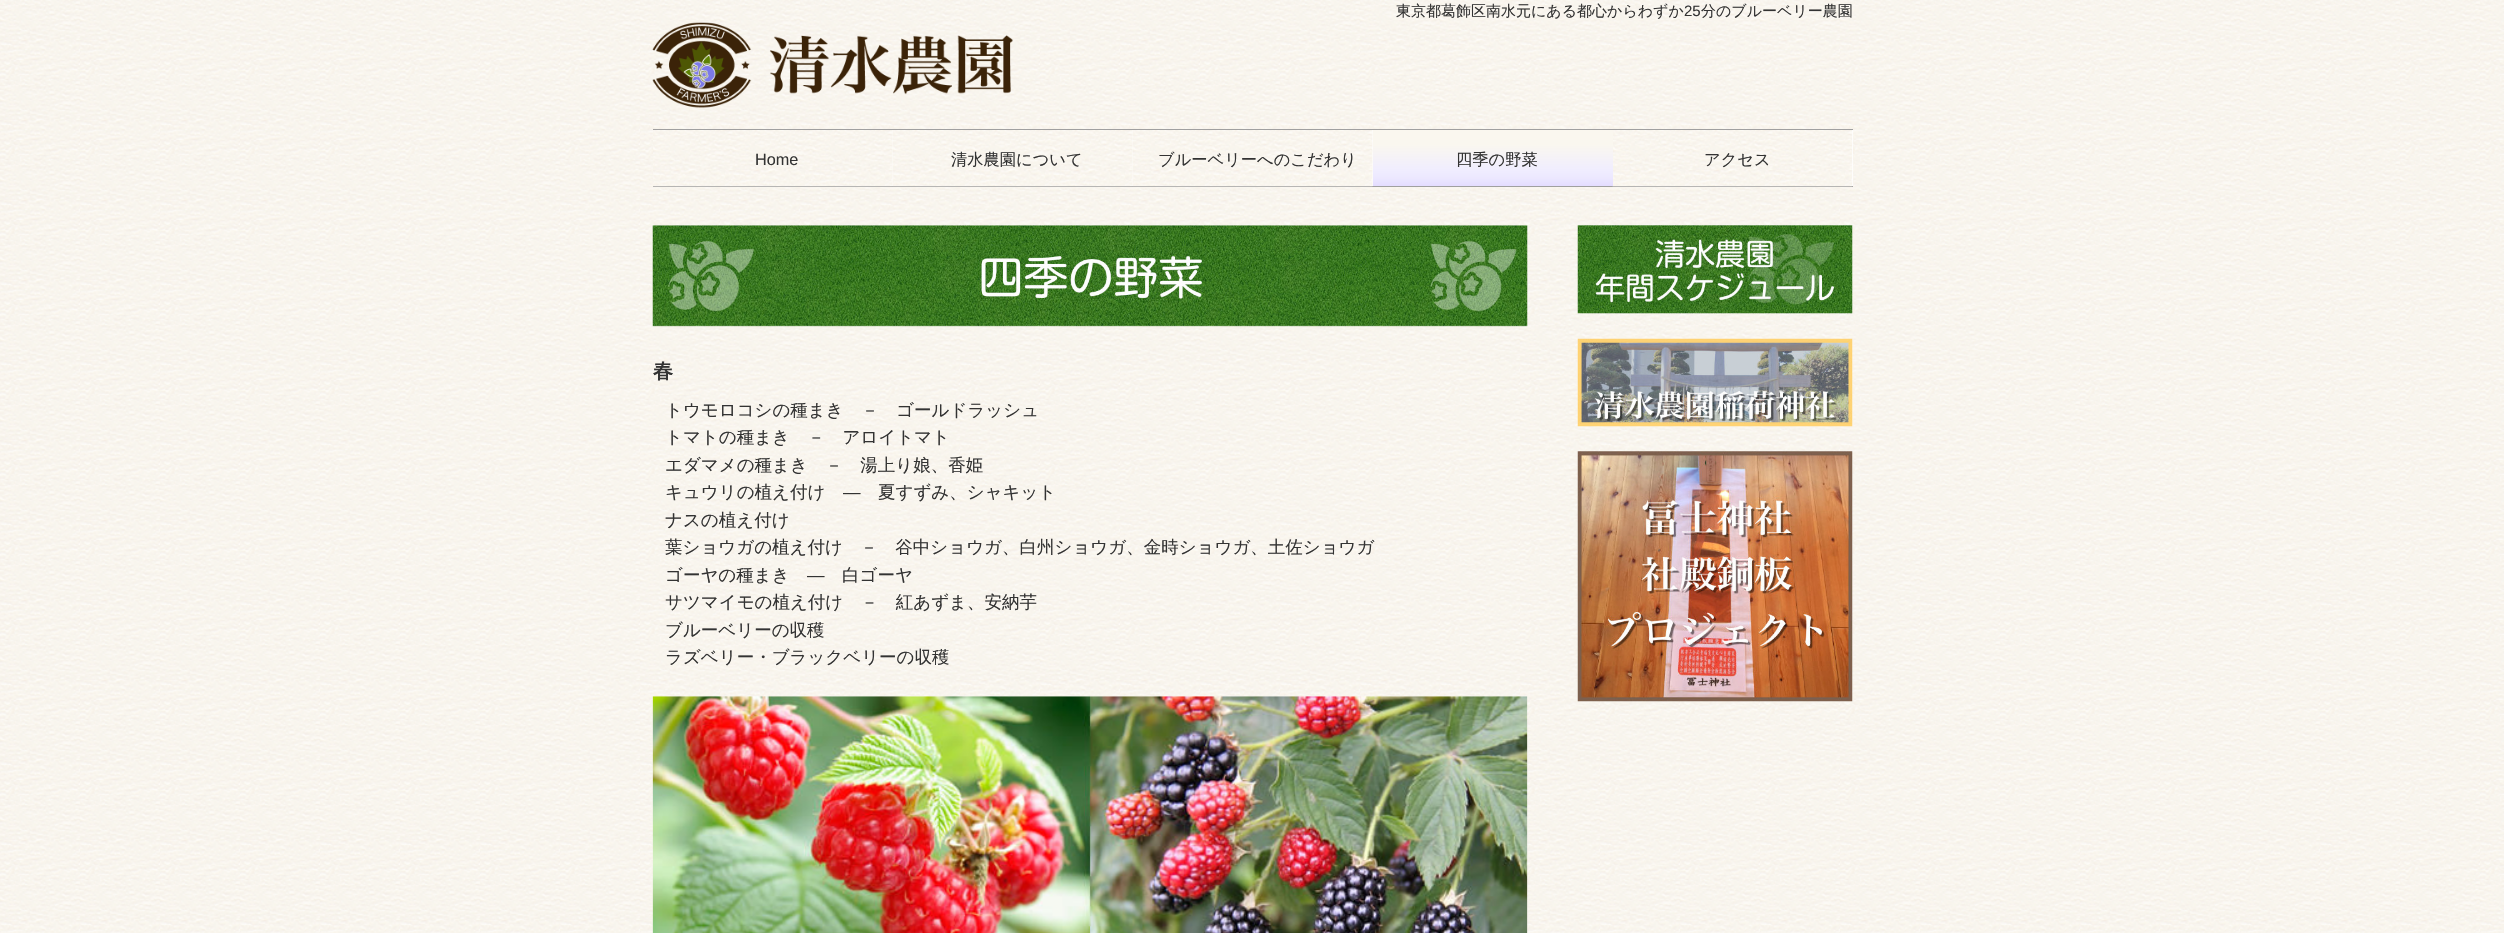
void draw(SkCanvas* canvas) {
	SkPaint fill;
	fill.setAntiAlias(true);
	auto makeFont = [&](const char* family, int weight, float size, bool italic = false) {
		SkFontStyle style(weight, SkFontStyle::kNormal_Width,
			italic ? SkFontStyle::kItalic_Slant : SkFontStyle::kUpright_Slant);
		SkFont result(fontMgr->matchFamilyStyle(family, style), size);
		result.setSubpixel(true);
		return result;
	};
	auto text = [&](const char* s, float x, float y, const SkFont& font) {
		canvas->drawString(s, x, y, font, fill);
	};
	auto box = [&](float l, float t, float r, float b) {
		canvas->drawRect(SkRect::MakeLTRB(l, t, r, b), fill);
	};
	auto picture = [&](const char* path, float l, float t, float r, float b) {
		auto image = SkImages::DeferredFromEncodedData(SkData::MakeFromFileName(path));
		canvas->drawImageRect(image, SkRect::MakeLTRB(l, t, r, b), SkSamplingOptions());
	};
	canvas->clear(0xFFFFFFFF);
	picture("image0.png", 0, 0, 2504, 933);
	picture("image1.png", 652, 22, 1013, 108);
	fill.setColor(0xFFA0A0A0);
	box(653, 129, 1853, 130);
	box(653, 186, 1853, 187);
	fill.setColor(0xFFFFFFFF);
	box(892, 130, 1853, 186);
	picture("image2.png", 653, 130, 893, 187);
	picture("image3.png", 892, 130, 1133, 187);
	picture("image4.png", 1132, 130, 1373, 187);
	picture("image5.png", 1612, 130, 1853, 187);
	{
		const SkColor colors[] = {0xFFFAF7EF, 0xFFFAF7EF, 0xFFF0EDFF, 0xFFECE8FF, 0xFFE3DCFF};
		const float stops[] = {0, 0.26f, 0.72f, 0.86f, 1};
		const SkPoint ends[] = {{1493, 130}, {1493, 186}};
		fill.setShader(SkGradientShader::MakeLinear(ends, colors, stops, 5, SkTileMode::kClamp));
		fill.setAlpha(255);
	}
	box(1373, 130, 1613, 186);
	picture("image6.png", 652, 225, 1528, 327);
	picture("image7.png", 652, 696, 1528, 933);
	picture("image8.png", 1577, 225, 1853, 314);
	picture("image9.png", 1577, 338, 1853, 427);
	picture("image10.png", 1577, 451, 1853, 702);
	auto font1 = makeFont("WenQuanYi Zen Hei", 500, 15);
	fill.setShader(nullptr);
	fill.setColor(0xFF333333);
	text("東京都葛飾区南水元にある都心からわずか", 1396, 16, font1);
	auto font2 = makeFont("Liberation Sans", 400, 15);
	text("25", 1684, 16, font2);
	text("分のブルーベリー農園", 1701, 16, font1);
	auto font3 = makeFont("Liberation Sans", 400, 16.25f);
	text("Home", 755, 165, font3);
	auto font4 = makeFont("WenQuanYi Zen Hei", 500, 16.25f);
	text("清水農園について", 951, 165, font4);
	text("ブルーベリーへのこだわり", 1158, 165, font4);
	text("四季の野菜", 1456, 165, font4);
	text("アクセス", 1704, 165, font4);
	auto font5 = makeFont("WenQuanYi Zen Hei", 700, 20);
	text("春", 653, 378, font5);
	auto font6 = makeFont("WenQuanYi Zen Hei", 500, 17.5f);
	text("トウモロコシの種まき　－　ゴールドラッシュ", 665, 416, font6);
	text("トマトの種まき　－　アロイトマト", 665, 443, font6);
	text("エダマメの種まき　－　湯上り娘、香姫", 665, 471, font6);
	text("キュウリの植え付け", 665, 498, font6);
	auto font7 = makeFont("Liberation Sans", 400, 17.5f);
	text("―", 843, 498, font7);
	text("夏すずみ、シャキット", 878, 498, font6);
	text("ナスの植え付け", 665, 526, font6);
	text("葉ショウガの植え付け　－　谷中ショウガ、白州ショウガ、金時ショウガ、土佐ショウガ", 665, 553, font6);
	text("ゴーヤの種まき", 665, 581, font6);
	text("―", 807, 581, font7);
	text("白ゴーヤ", 842, 581, font6);
	text("サツマイモの植え付け　－　紅あずま、安納芋", 665, 608, font6);
	text("ブルーベリーの収穫", 665, 636, font6);
	text("ラズベリー・ブラックベリーの収穫", 665, 663, font6);
}
